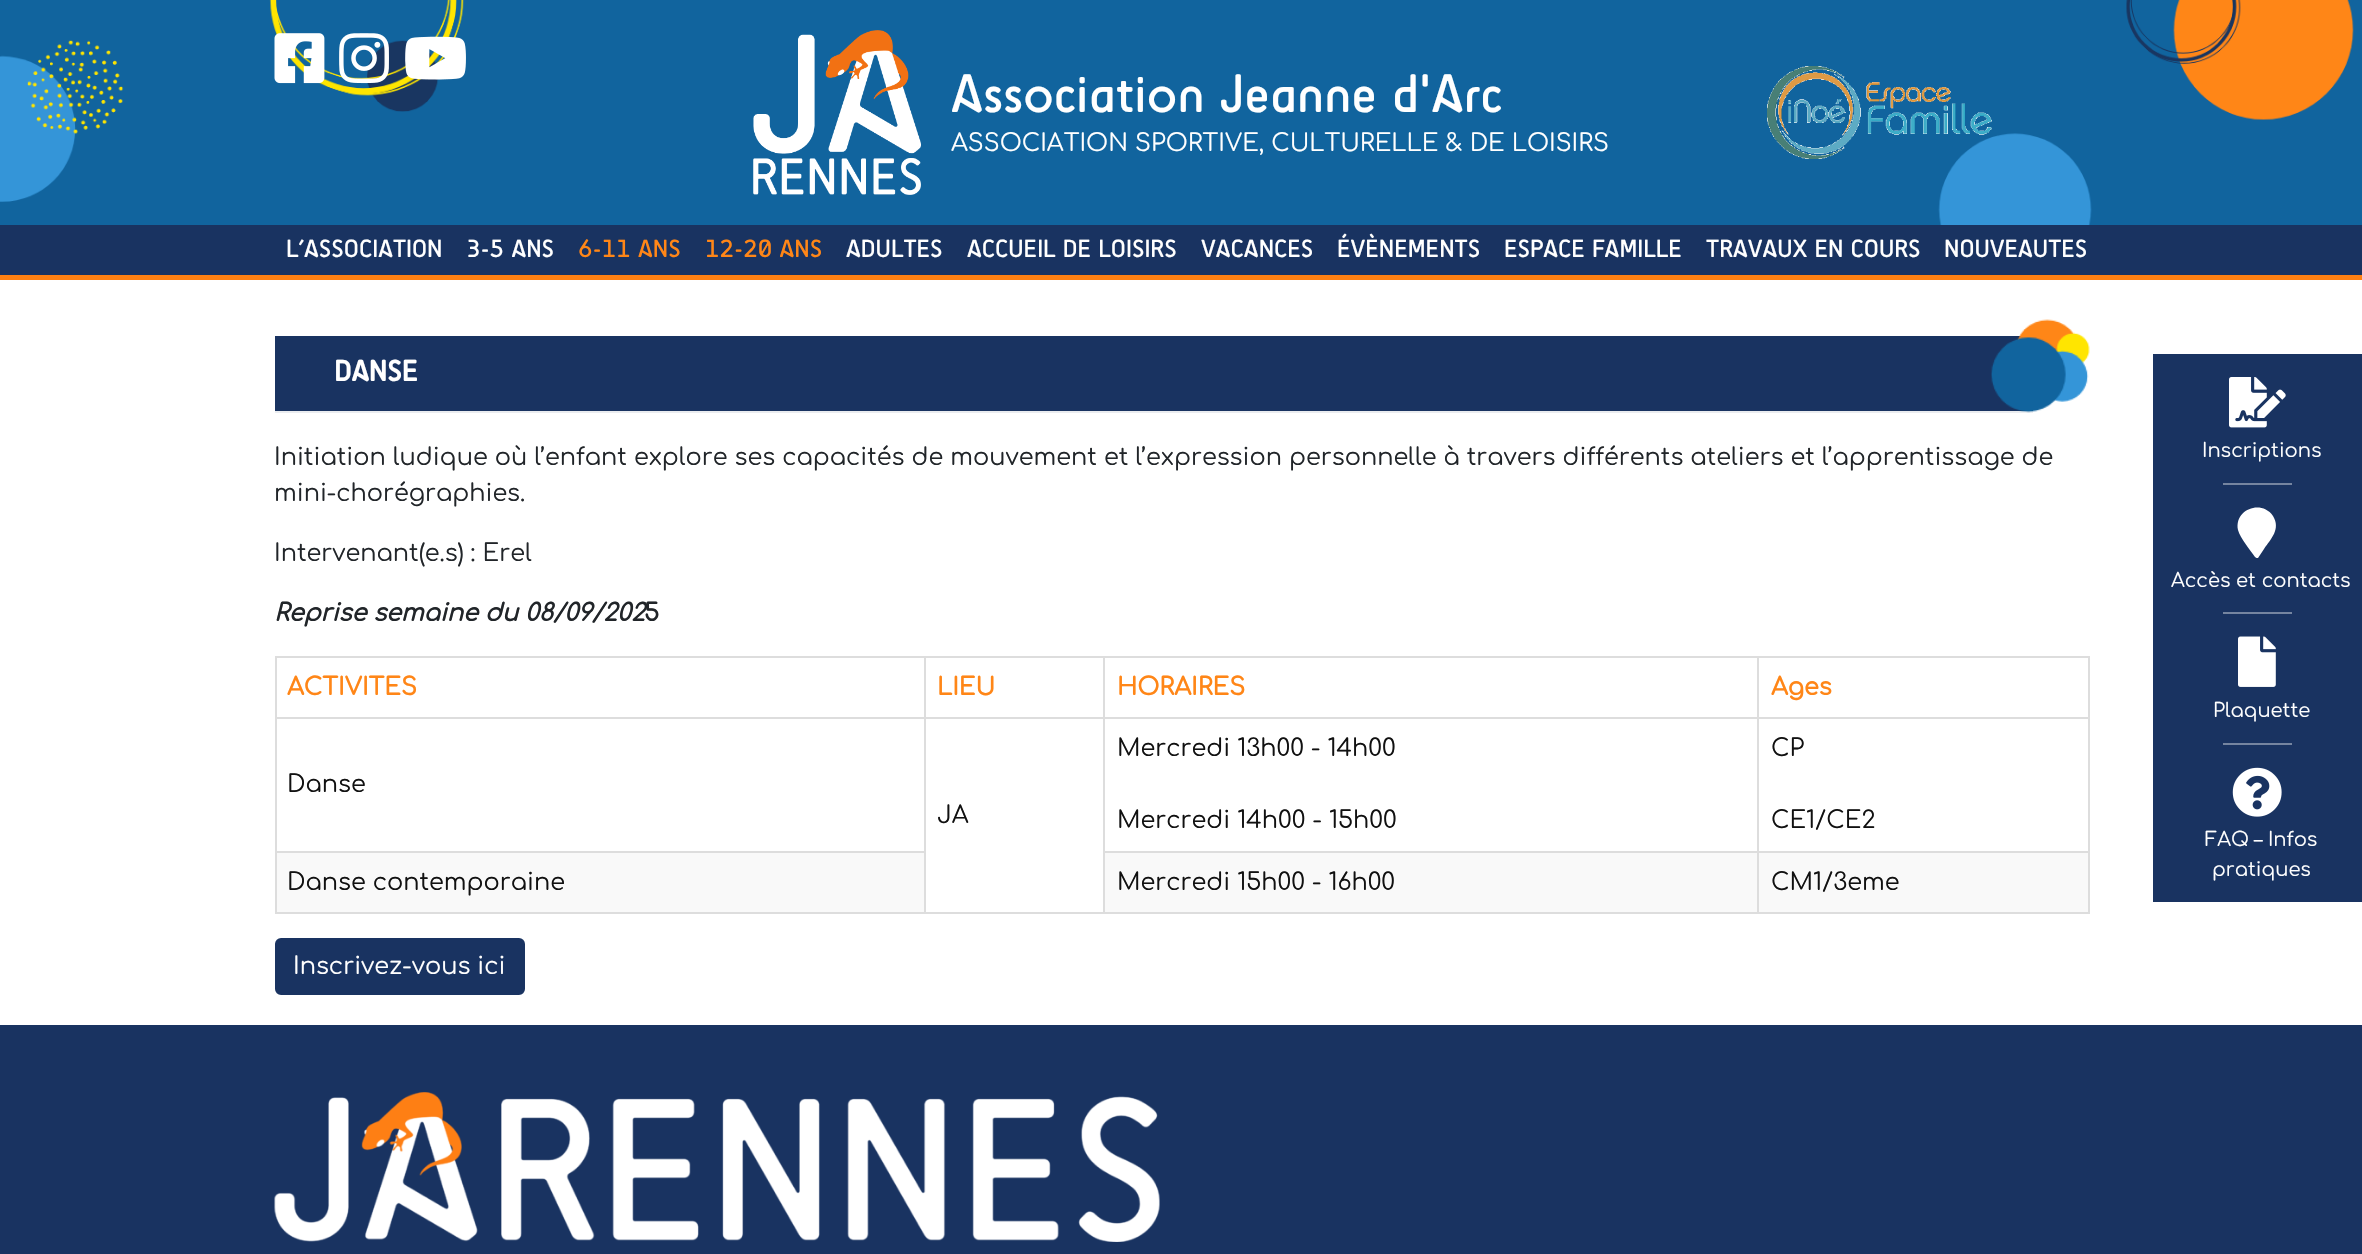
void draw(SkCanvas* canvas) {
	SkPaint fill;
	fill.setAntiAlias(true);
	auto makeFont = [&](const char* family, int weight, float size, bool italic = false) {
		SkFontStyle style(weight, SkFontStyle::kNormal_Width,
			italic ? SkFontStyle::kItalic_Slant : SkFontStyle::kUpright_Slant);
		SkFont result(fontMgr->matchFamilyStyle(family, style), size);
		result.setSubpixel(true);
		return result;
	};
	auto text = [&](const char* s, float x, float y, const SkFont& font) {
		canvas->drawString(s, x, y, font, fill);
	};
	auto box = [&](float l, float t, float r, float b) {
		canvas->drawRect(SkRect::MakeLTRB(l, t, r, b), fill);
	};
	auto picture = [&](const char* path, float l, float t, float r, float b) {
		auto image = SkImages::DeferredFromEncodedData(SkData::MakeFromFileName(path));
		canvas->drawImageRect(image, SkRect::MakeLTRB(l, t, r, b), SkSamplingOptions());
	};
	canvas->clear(0xFF193361);
	fill.setColor(0xFF11649E);
	box(0, 0, 2362, 225);
	picture("image0.png", 1938, 0, 2354, 225);
	picture("image1.png", 0, 0, 464, 202);
	picture("image2.png", 274, 33, 325, 84);
	picture("image3.png", 339, 33, 389, 84);
	picture("image4.png", 405, 36, 466, 80);
	picture("image5.png", 753, 30, 921, 195);
	picture("image6.png", 1767, 66, 1992, 159);
	fill.setColor(0xFFFE8013);
	box(0, 275, 2362, 280);
	fill.setColor(0xFFFFFFFF);
	box(0, 280, 2362, 1025);
	fill.setColor(0xFF193361);
	box(275, 336, 2033, 411);
	fill.setColor(0xFFEAECEF);
	box(275, 411, 2033, 413);
	picture("image7.png", 1991, 319, 2090, 413);
	fill.setColor(0xFFDDDDDD);
	box(1757, 656, 2090, 658);
	box(1757, 717, 2090, 719);
	box(1757, 851, 2090, 853);
	box(2088, 851, 2090, 914);
	box(1757, 912, 2090, 914);
	box(1757, 851, 1759, 914);
	box(1103, 851, 1758, 853);
	box(1757, 717, 1759, 852);
	box(1103, 717, 1758, 719);
	box(1757, 656, 1759, 719);
	box(1103, 656, 1758, 658);
	box(1103, 912, 1758, 914);
	box(1103, 851, 1105, 914);
	box(1103, 717, 1105, 852);
	box(924, 717, 1104, 719);
	box(1103, 656, 1105, 719);
	box(924, 656, 1104, 658);
	box(275, 851, 926, 853);
	box(275, 912, 1104, 914);
	box(924, 717, 926, 914);
	box(275, 717, 926, 719);
	box(924, 656, 926, 719);
	box(275, 656, 926, 658);
	box(275, 851, 277, 914);
	box(275, 717, 277, 852);
	box(275, 656, 277, 719);
	box(2088, 717, 2090, 852);
	box(2088, 656, 2090, 719);
	fill.setColor(0xFFF9F9F9);
	box(277, 853, 924, 912);
	box(1105, 853, 1757, 912);
	box(1759, 853, 2088, 912);
	fill.setColor(0xFF193361);
	canvas->drawRoundRect(SkRect::MakeLTRB(276, 939, 524, 994), 5, 5, fill);
	fill.setStyle(SkPaint::kStroke_Style);
	fill.setStrokeWidth(2);
	canvas->drawRoundRect(SkRect::MakeLTRB(276, 939, 524, 994), 5, 5, fill);
	fill.setStyle(SkPaint::kFill_Style);
	box(2153, 354, 2362, 902);
	picture("image8.png", 2229, 377, 2286, 428);
	fill.setColor(0xFF7585A0);
	box(2223, 483, 2292, 485);
	fill.setColor(0xFFFFFFFF);
	canvas->drawPath(SkPathBuilder().moveTo(2255, 557).cubicTo(2251, 551, 2240, 538, 2238, 530).cubicTo(2234, 510, 2261, 499, 2273, 516).cubicTo(2281, 529, 2271, 539, 2264, 549).lineTo(2258, 558).cubicTo(2257, 558, 2256, 558, 2255, 557).close().detach(), fill);
	fill.setColor(0xFF7585A0);
	box(2223, 612, 2292, 614);
	picture("image9.png", 2238, 636, 2276, 687);
	box(2223, 743, 2292, 745);
	picture("image10.png", 2232, 767, 2282, 817);
	picture("image11.png", 274, 1092, 1160, 1242);
	auto font1 = makeFont("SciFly", 400, 55.5f);
	fill.setColor(0xFFFFFFFF);
	text("Association Jeanne d'Arc", 951, 112, font1);
	auto font2 = makeFont("Comfortaa", 400, 24);
	text("ASSOCIATION SPORTIVE, CULTURELLE & DE LOISIRS", 951, 151, font2);
	auto font3 = makeFont("SciFly", 400, 25.5f);
	text("L’ASSOCIATION", 286, 257, font3);
	text("3-5 ANS", 466, 257, font3);
	fill.setColor(0xFFFF8617);
	text("6-11 ANS", 578, 257, font3);
	text("12-20 ANS", 705, 257, font3);
	fill.setColor(0xFFFFFFFF);
	text("ADULTES", 846, 257, font3);
	text("ACCUEIL DE LOISIRS", 967, 257, font3);
	text("VACANCES", 1201, 257, font3);
	text("ÉVÈNEMENTS", 1337, 257, font3);
	text("ESPACE FAMILLE", 1504, 257, font3);
	text("TRAVAUX EN COURS", 1706, 257, font3);
	text("NOUVEAUTES", 1944, 257, font3);
	auto font4 = makeFont("SciFly", 700, 30);
	text("DANSE", 334, 381, font4);
	fill.setColor(0xFF212529);
	text("Initiation ludique où l’enfant explore ses capacités de mouvement et l’expression personnelle à travers différents ateliers et l’apprentissage de", 274, 465, font2);
	text("mini-chorégraphies.", 274, 501, font2);
	text("Intervenant(e.s) : Erel", 274, 561, font2);
	auto font5 = makeFont("Comfortaa", 700, 24, true);
	text("Reprise semaine du 08/09/202", 274, 621, font5);
	auto font6 = makeFont("Comfortaa", 700, 24);
	text("5", 644, 621, font6);
	fill.setColor(0xFFFF8617);
	text("ACTIVITES", 287, 695, font6);
	text("LIEU", 937, 695, font6);
	text("HORAIRES", 1117, 695, font6);
	text("Ages", 1771, 695, font6);
	fill.setColor(0xFF111111);
	text("Danse", 287, 792, font2);
	text("Mercredi 13h00 - 14h00", 1117, 756, font2);
	text("Mercredi 14h00 - 15h00", 1117, 828, font2);
	text("CP", 1771, 756, font2);
	text("CE1/CE2", 1771, 828, font2);
	text("JA", 937, 823, font2);
	text("Danse contemporaine", 287, 890, font2);
	text("Mercredi 15h00 - 16h00", 1117, 890, font2);
	text("CM1/3eme", 1771, 890, font2);
	fill.setColor(0xFFFFFFFF);
	text("Inscrivez-vous ici", 293, 974, font2);
	auto font7 = makeFont("Comfortaa", 400, 19.5f);
	text("Inscriptions", 2202, 457, font7);
	text("Accès et contacts", 2171, 587, font7);
	text("Plaquette", 2213, 717, font7);
	text("FAQ – Infos", 2205, 846, font7);
	text("pratiques", 2212, 876, font7);
}
